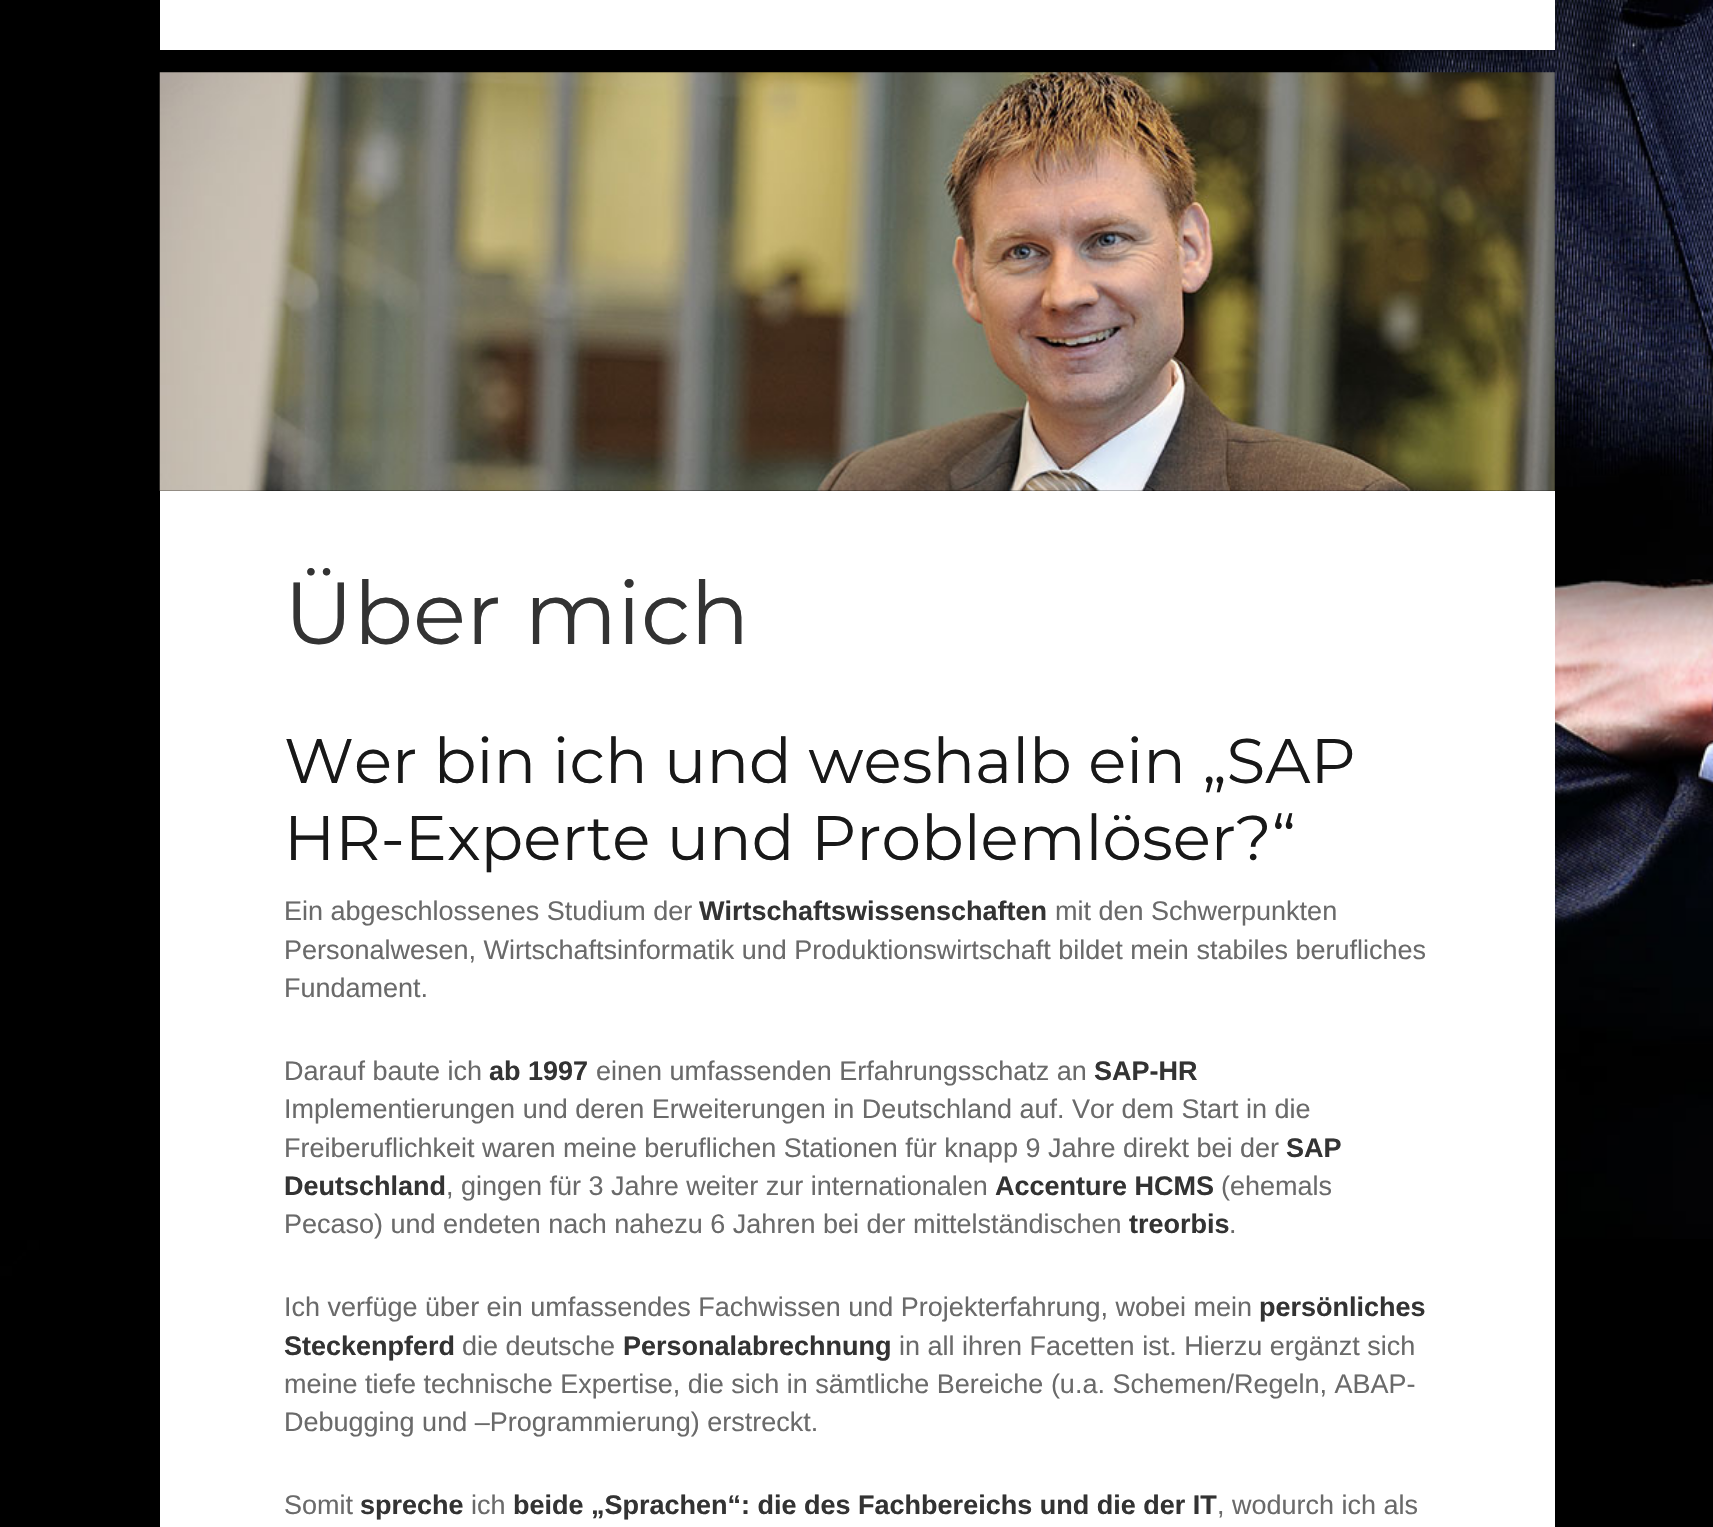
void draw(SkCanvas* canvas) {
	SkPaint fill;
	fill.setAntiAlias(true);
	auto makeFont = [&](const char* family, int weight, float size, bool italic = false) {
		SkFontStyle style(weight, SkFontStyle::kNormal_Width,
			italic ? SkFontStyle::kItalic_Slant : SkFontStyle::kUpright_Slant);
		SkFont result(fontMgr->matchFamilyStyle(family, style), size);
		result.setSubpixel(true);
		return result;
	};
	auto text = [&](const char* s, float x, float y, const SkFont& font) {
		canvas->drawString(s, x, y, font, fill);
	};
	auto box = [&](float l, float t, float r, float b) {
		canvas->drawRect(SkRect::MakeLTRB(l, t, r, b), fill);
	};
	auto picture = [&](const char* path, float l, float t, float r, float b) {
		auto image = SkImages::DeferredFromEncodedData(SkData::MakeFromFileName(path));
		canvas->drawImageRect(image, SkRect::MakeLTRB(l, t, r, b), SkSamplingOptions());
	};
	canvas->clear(0xFFFFFFFF);
	picture("image0.png", 0, 0, 1713, 1239);
	picture("image1.png", 0, 1239, 1713, 1527);
	fill.setColor(0x59000000);
	fill.setMaskFilter(SkMaskFilter::MakeBlur(kNormal_SkBlurStyle, 5.5f));
	canvas->drawRect(SkRect::MakeLTRB(160, -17, 1555, 54), fill);
	fill.setMaskFilter(nullptr);
	fill.setColor(0xFFFFFFFF);
	box(160, 0, 1555, 50);
	picture("image2.png", 159, 72, 1555, 491);
	box(160, 491, 1555, 1527);
	auto font1 = makeFont("Montserrat", 100, 87.75f);
	fill.setColor(0xFF333333);
	text("Über mich", 284, 644, font1);
	auto font2 = makeFont("Montserrat", 100, 63);
	fill.setColor(0xFF181818);
	text("Wer bin ich und weshalb ein „SAP", 284, 783, font2);
	text("HR-Experte und Problemlöser?“", 284, 860, font2);
	auto font3 = makeFont("Liberation Sans", 400, 27);
	fill.setColor(0xFF6A6A6A);
	text("Ein abgeschlossenes Studium der", 284, 920, font3);
	auto font4 = makeFont("Liberation Sans", 700, 27);
	fill.setColor(0xFF333333);
	text("Wirtschaftswissenschaften", 699, 920, font4);
	fill.setColor(0xFF6A6A6A);
	text("mit den Schwerpunkten", 1055, 920, font3);
	text("Personalwesen, Wirtschaftsinformatik und Produktionswirtschaft bildet mein stabiles berufliches", 284, 959, font3);
	text("Fundament.", 284, 997, font3);
	text("Darauf baute ich", 284, 1080, font3);
	fill.setColor(0xFF333333);
	text("ab 1997", 489, 1080, font4);
	fill.setColor(0xFF6A6A6A);
	text("einen umfassenden Erfahrungsschatz an", 596, 1080, font3);
	fill.setColor(0xFF333333);
	text("SAP-HR", 1094, 1080, font4);
	fill.setColor(0xFF6A6A6A);
	text("Implementierungen und deren Erweiterungen in Deutschland auf. Vor dem Start in die", 284, 1118, font3);
	text("Freiberuflichkeit waren meine beruflichen Stationen für knapp 9 Jahre direkt bei der", 284, 1157, font3);
	fill.setColor(0xFF333333);
	text("SAP", 1286, 1157, font4);
	text("Deutschland", 284, 1195, font4);
	fill.setColor(0xFF6A6A6A);
	text(", gingen für 3 Jahre weiter zur internationalen", 446, 1195, font3);
	fill.setColor(0xFF333333);
	text("Accenture HCMS", 995, 1195, font4);
	fill.setColor(0xFF6A6A6A);
	text("(ehemals", 1221, 1195, font3);
	text("Pecaso) und endeten nach nahezu 6 Jahren bei der mittelständischen", 284, 1233, font3);
	fill.setColor(0xFF333333);
	text("treorbis", 1129, 1233, font4);
	fill.setColor(0xFF6A6A6A);
	text(".", 1229, 1233, font3);
	text("Ich verfüge über ein umfassendes Fachwissen und Projekterfahrung, wobei mein", 284, 1316, font3);
	fill.setColor(0xFF333333);
	text("persönliches", 1259, 1316, font4);
	text("Steckenpferd", 284, 1355, font4);
	fill.setColor(0xFF6A6A6A);
	text("die deutsche", 462, 1355, font3);
	fill.setColor(0xFF333333);
	text("Personalabrechnung", 623, 1355, font4);
	fill.setColor(0xFF6A6A6A);
	text("in all ihren Facetten ist. Hierzu ergänzt sich", 899, 1355, font3);
	text("meine tiefe technische Expertise, die sich in sämtliche Bereiche (u.a. Schemen/Regeln, ABAP-", 284, 1393, font3);
	text("Debugging und –Programmierung) erstreckt.", 284, 1431, font3);
	text("Somit", 284, 1514, font3);
	fill.setColor(0xFF333333);
	text("spreche", 360, 1514, font4);
	fill.setColor(0xFF6A6A6A);
	text("ich", 471, 1514, font3);
	fill.setColor(0xFF333333);
	text("beide „Sprachen“: die des Fachbereichs und die der IT", 513, 1514, font4);
	fill.setColor(0xFF6A6A6A);
	text(", wodurch ich als", 1217, 1514, font3);
}
